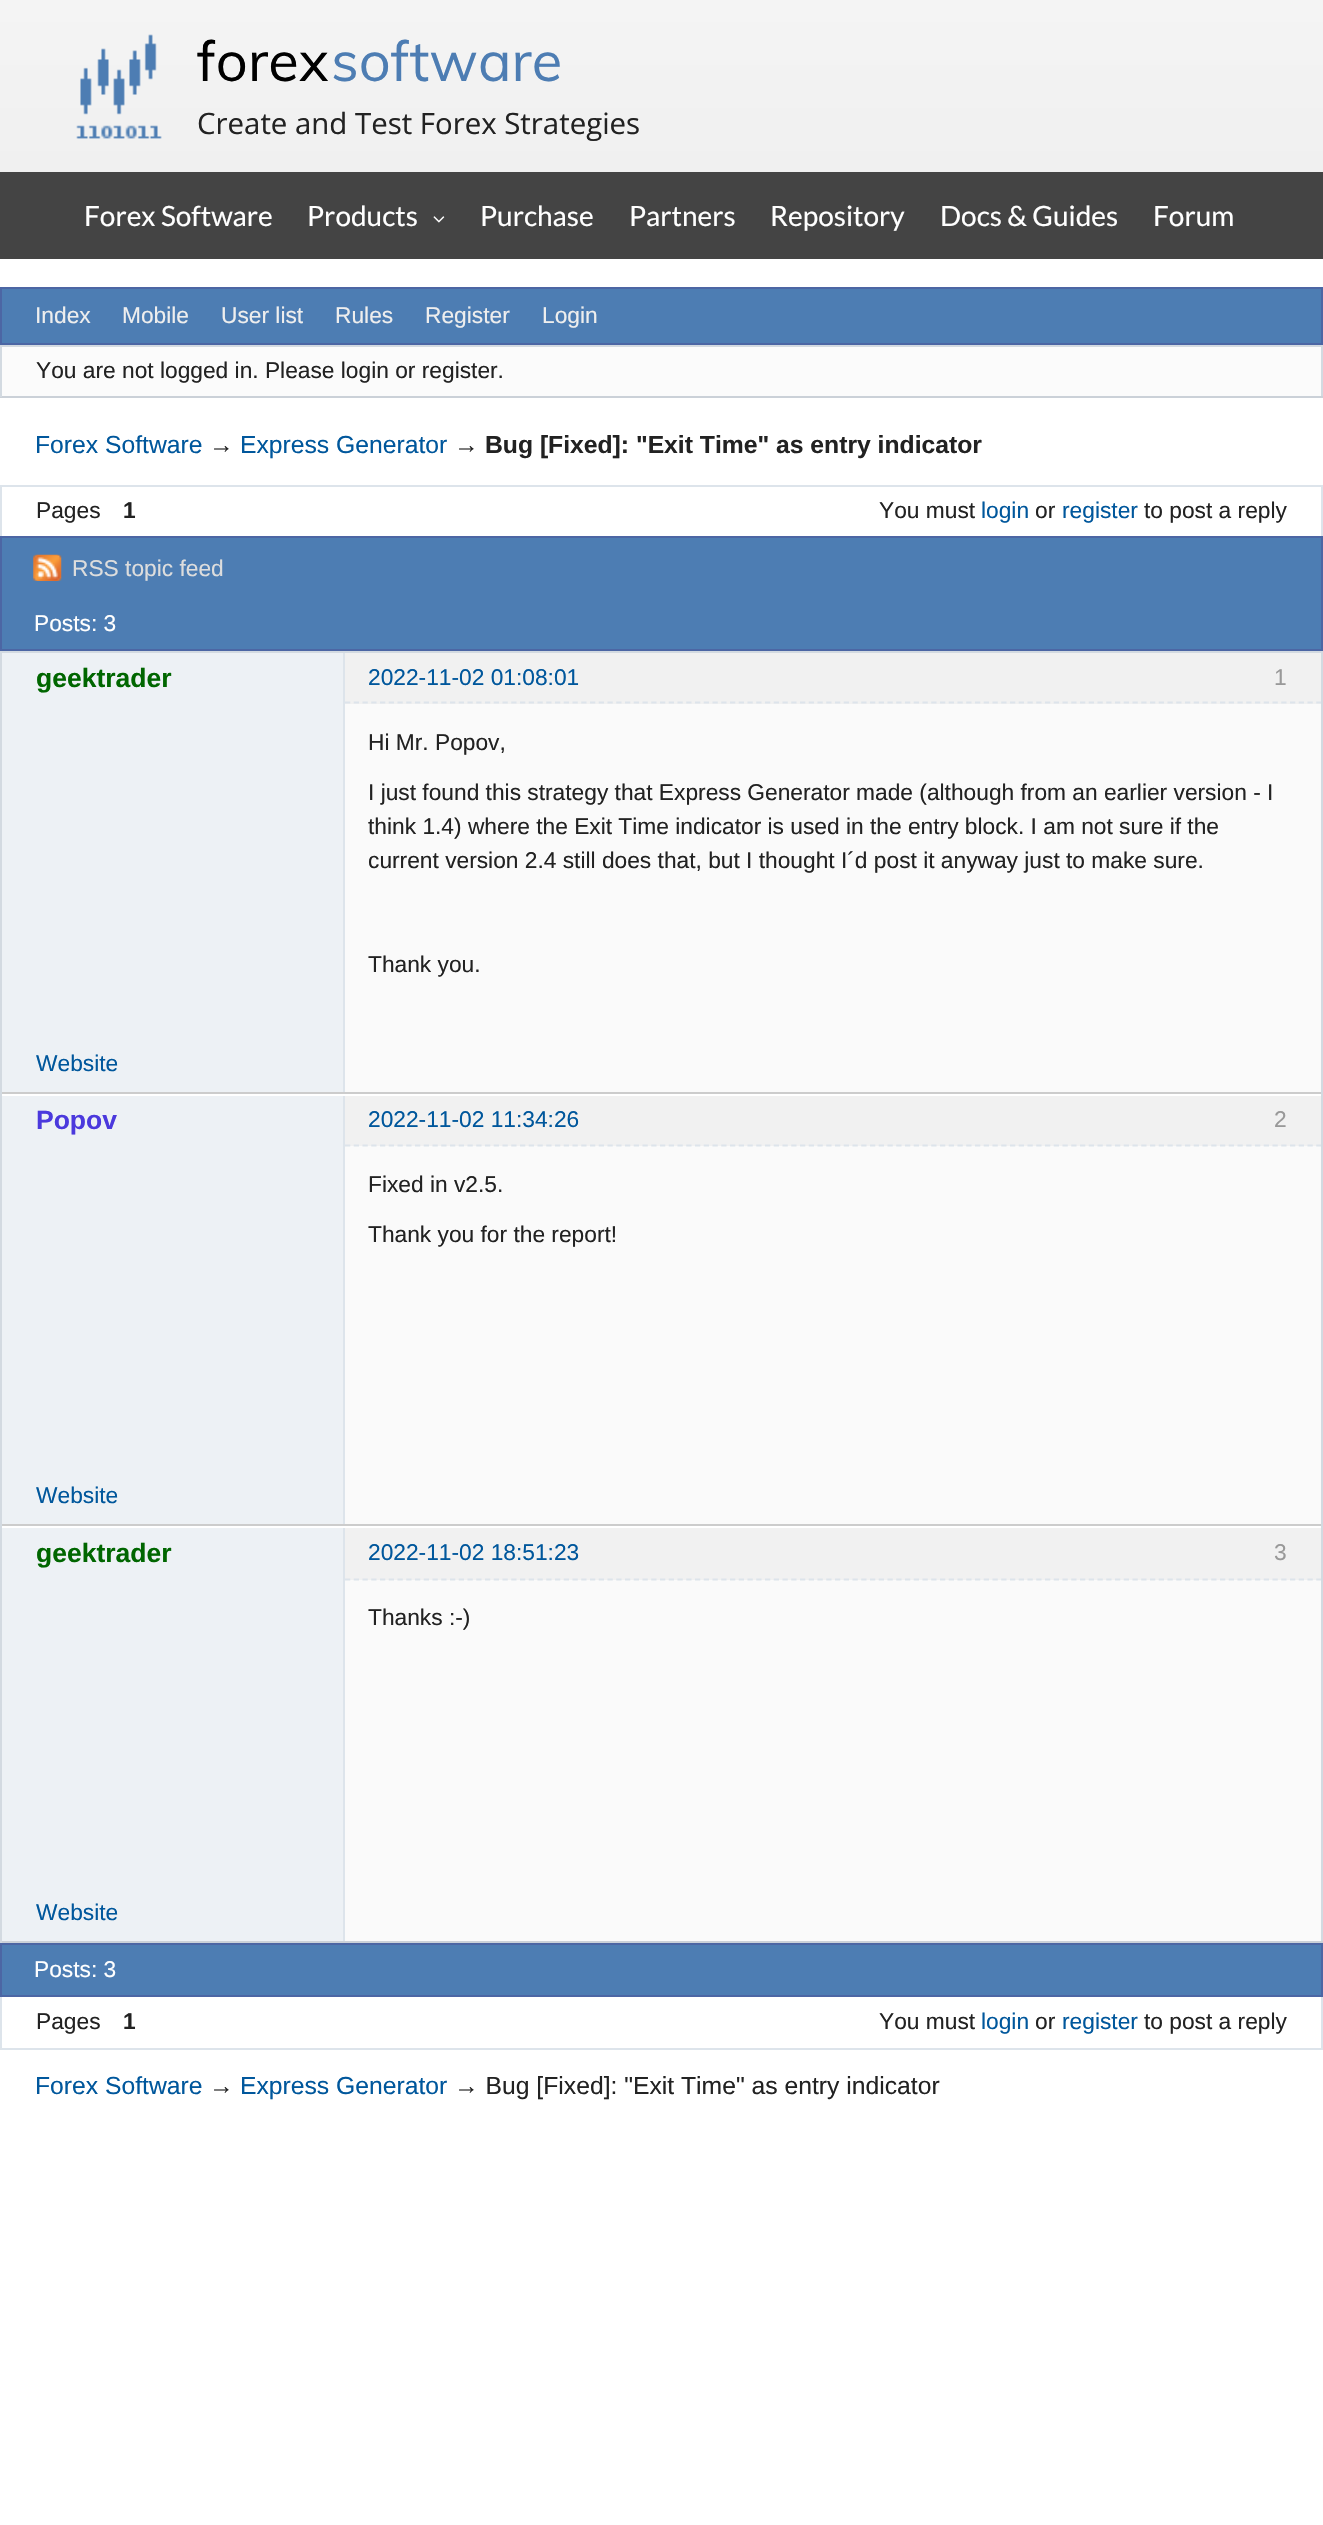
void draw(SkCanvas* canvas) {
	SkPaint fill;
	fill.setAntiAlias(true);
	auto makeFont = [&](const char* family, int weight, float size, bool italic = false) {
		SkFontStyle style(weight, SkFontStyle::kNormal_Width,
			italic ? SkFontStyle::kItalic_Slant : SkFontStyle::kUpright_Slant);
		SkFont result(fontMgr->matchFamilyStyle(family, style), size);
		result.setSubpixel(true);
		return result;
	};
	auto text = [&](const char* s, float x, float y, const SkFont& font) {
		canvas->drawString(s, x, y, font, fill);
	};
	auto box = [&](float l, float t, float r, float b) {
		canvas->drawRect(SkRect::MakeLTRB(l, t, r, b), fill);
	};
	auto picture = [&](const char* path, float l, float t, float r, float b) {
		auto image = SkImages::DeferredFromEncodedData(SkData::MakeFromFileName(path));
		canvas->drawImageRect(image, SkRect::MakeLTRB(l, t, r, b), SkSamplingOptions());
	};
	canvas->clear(0xFFFFFFFF);
	{
		const SkColor colors[] = {0xFFF0F0F0, 0xFFF4F4F4};
		const float stops[] = {0, 1};
		const SkPoint ends[] = {{662, 172}, {662, 0}};
		fill.setShader(SkGradientShader::MakeLinear(ends, colors, stops, 2, SkTileMode::kClamp));
		fill.setAlpha(255);
	}
	box(0, 0, 1323, 172);
	picture("image0.png", 76, 34, 162, 139);
	fill.setShader(nullptr);
	fill.setColor(0xFF444444);
	box(0, 172, 1323, 259);
	picture("image1.png", 433, 216, 445, 223);
	fill.setColor(0xFF4D7DB3);
	canvas->drawRect(SkRect::MakeLTRB(1, 288, 1322, 344), fill);
	fill.setStyle(SkPaint::kStroke_Style);
	fill.setStrokeWidth(2);
	fill.setColor(0xFF4C66A4);
	canvas->drawRect(SkRect::MakeLTRB(1, 288, 1322, 344), fill);
	fill.setStyle(SkPaint::kFill_Style);
	fill.setColor(0xFFFBFBFB);
	box(2, 347, 1321, 396);
	fill.setColor(0xFFD3DAE1);
	box(0, 345, 1323, 347);
	box(1321, 345, 1323, 397);
	fill.setColor(0xFFCBD1D8);
	box(0, 396, 1323, 398);
	fill.setColor(0xFFD3DAE1);
	box(0, 345, 2, 397);
	fill.setColor(0xFFDDE4EB);
	box(0, 485, 1323, 487);
	box(1321, 485, 1323, 536);
	box(0, 485, 2, 536);
	fill.setColor(0xFF4D7DB3);
	canvas->drawRect(SkRect::MakeLTRB(1, 537, 1322, 650), fill);
	fill.setStyle(SkPaint::kStroke_Style);
	fill.setColor(0xFF4C66A4);
	canvas->drawRect(SkRect::MakeLTRB(1, 537, 1322, 650), fill);
	picture("image2.png", 33, 554, 62, 581);
	fill.setStyle(SkPaint::kFill_Style);
	fill.setColor(0xFFD3DAE1);
	box(0, 651, 1323, 653);
	box(1321, 651, 1323, 1943);
	fill.setColor(0xFFCBD1D8);
	box(0, 1941, 1323, 1943);
	fill.setColor(0xFFD3DAE1);
	box(0, 651, 2, 1943);
	fill.setColor(0xFFEDF1F5);
	box(2, 653, 343, 1092);
	fill.setColor(0xFFCCCCCC);
	box(2, 1092, 1321, 1094);
	fill.setColor(0xFFFAFAFA);
	box(345, 704, 1321, 1092);
	fill.setColor(0xFFDDE4EB);
	box(343, 653, 345, 1092);
	fill.setColor(0xFFF1F1F1);
	box(345, 653, 1321, 704);
	fill.setStyle(SkPaint::kStroke_Style);
	fill.setStrokeWidth(1.8f);
	fill.setColor(0xFFDDE4EB);
	fill.setPathEffect(SkDashPathEffect::Make({{5.25f, 3.5f}}, 0));
	canvas->drawPath(SkPathBuilder().moveTo(345, 702.5f).lineTo(1321, 702.5f).detach(), fill);
	fill.setPathEffect(nullptr);
	fill.setStyle(SkPaint::kFill_Style);
	fill.setColor(0xFFEDF1F5);
	box(2, 1096, 343, 1524);
	fill.setColor(0xFFCCCCCC);
	box(2, 1524, 1321, 1526);
	fill.setColor(0xFFFAFAFA);
	box(345, 1146, 1321, 1524);
	fill.setColor(0xFFDDE4EB);
	box(343, 1096, 345, 1524);
	fill.setColor(0xFFF1F1F1);
	box(345, 1096, 1321, 1146);
	fill.setStyle(SkPaint::kStroke_Style);
	fill.setColor(0xFFDDE4EB);
	fill.setPathEffect(SkDashPathEffect::Make({{5.25f, 3.5f}}, 0));
	canvas->drawPath(SkPathBuilder().moveTo(345, 1145.5f).lineTo(1321, 1145.5f).detach(), fill);
	fill.setPathEffect(nullptr);
	fill.setStyle(SkPaint::kFill_Style);
	fill.setColor(0xFFEDF1F5);
	box(2, 1528, 343, 1941);
	fill.setColor(0xFFFAFAFA);
	box(345, 1580, 1321, 1941);
	fill.setColor(0xFFDDE4EB);
	box(343, 1528, 345, 1941);
	fill.setColor(0xFFF1F1F1);
	box(345, 1528, 1321, 1580);
	fill.setStyle(SkPaint::kStroke_Style);
	fill.setColor(0xFFDDE4EB);
	fill.setPathEffect(SkDashPathEffect::Make({{5.25f, 3.5f}}, 0));
	canvas->drawPath(SkPathBuilder().moveTo(345, 1579.5f).lineTo(1321, 1579.5f).detach(), fill);
	fill.setPathEffect(nullptr);
	fill.setStyle(SkPaint::kFill_Style);
	fill.setColor(0xFF4D7DB3);
	canvas->drawRect(SkRect::MakeLTRB(1, 1944, 1322, 1996), fill);
	fill.setStyle(SkPaint::kStroke_Style);
	fill.setStrokeWidth(2);
	fill.setColor(0xFF4C66A4);
	canvas->drawRect(SkRect::MakeLTRB(1, 1944, 1322, 1996), fill);
	fill.setStyle(SkPaint::kFill_Style);
	fill.setColor(0xFFDDE4EB);
	box(1321, 1997, 1323, 2049);
	box(0, 2048, 1323, 2050);
	box(0, 1997, 2, 2049);
	auto font1 = makeFont("Muli", 400, 56);
	fill.setColor(0xFF000000);
	text("forex", 197, 81, font1);
	fill.setColor(0xFF4D7DB3);
	text("software", 331, 81, font1);
	auto font2 = makeFont("Open Sans", 400, 29.4f);
	fill.setColor(0xFF222222);
	text("Create and Test Forex Strategies", 197, 134, font2);
	auto font3 = makeFont("Lato", 400, 28);
	fill.setColor(0xFFFFFFFF);
	text("Forex Software", 84, 226, font3);
	text("Products", 307, 226, font3);
	text("Purchase", 480, 226, font3);
	text("Partners", 629, 226, font3);
	text("Repository", 770, 226, font3);
	text("Docs & Guides", 940, 226, font3);
	text("Forum", 1153, 226, font3);
	auto font4 = makeFont("Liberation Sans", 400, 22.75f);
	fill.setColor(0xFFEEEEEE);
	text("Index", 35, 323, font4);
	text("Mobile", 122, 323, font4);
	text("User list", 221, 323, font4);
	text("Rules", 335, 323, font4);
	text("Register", 425, 323, font4);
	text("Login", 542, 323, font4);
	fill.setColor(0xFF222222);
	text("You are not logged in. Please login or register.", 36, 378, font4);
	auto font5 = makeFont("Liberation Sans", 400, 24.7f);
	fill.setColor(0xFF00579C);
	text("Forex Software", 35, 453, font5);
	fill.setColor(0xFF222222);
	text("→", 209, 453, font5);
	fill.setColor(0xFF00579C);
	text("Express Generator", 240, 453, font5);
	fill.setColor(0xFF222222);
	text("→", 454, 453, font5);
	auto font6 = makeFont("Liberation Sans", 700, 24.7f);
	text("Bug [Fixed]: \"Exit Time\" as entry indicator", 485, 453, font6);
	text("Pages", 36, 518, font4);
	auto font7 = makeFont("Liberation Sans", 700, 22.75f);
	text("1", 123, 518, font7);
	text("You must", 879, 518, font4);
	fill.setColor(0xFF00579C);
	text("login", 981, 518, font4);
	fill.setColor(0xFF222222);
	text("or", 1035, 518, font4);
	fill.setColor(0xFF00579C);
	text("register", 1062, 518, font4);
	fill.setColor(0xFF222222);
	text("to post a reply", 1144, 518, font4);
	fill.setColor(0xFFDDDDDD);
	text("RSS topic feed", 72, 576, font4);
	fill.setColor(0xFFFFFFFF);
	text("Posts: 3", 34, 631, font4);
	auto font8 = makeFont("Liberation Sans", 700, 26.5f);
	fill.setColor(0xFF006600);
	text("geektrader", 36, 687, font8);
	fill.setColor(0xFF00579C);
	text("2022-11-02 01:08:01", 368, 685, font4);
	fill.setColor(0xFF999999);
	text("1", 1274, 685, font4);
	fill.setColor(0xFF222222);
	text("Hi Mr. Popov,", 368, 750, font4);
	text("I just found this strategy that Express Generator made (although from an earlier version - I", 368, 800, font4);
	text("think 1.4) where the Exit Time indicator is used in the entry block. I am not sure if the", 368, 834, font4);
	text("current version 2.4 still does that, but I thought I´d post it anyway just to make sure.", 368, 868, font4);
	text("Thank you.", 368, 972, font4);
	fill.setColor(0xFF00579C);
	text("Website", 36, 1071, font4);
	fill.setColor(0xFF4B39DD);
	text("Popov", 36, 1129, font8);
	fill.setColor(0xFF00579C);
	text("2022-11-02 11:34:26", 368, 1127, font4);
	fill.setColor(0xFF999999);
	text("2", 1274, 1127, font4);
	fill.setColor(0xFF222222);
	text("Fixed in v2.5.", 368, 1192, font4);
	text("Thank you for the report!", 368, 1242, font4);
	fill.setColor(0xFF00579C);
	text("Website", 36, 1503, font4);
	fill.setColor(0xFF006600);
	text("geektrader", 36, 1562, font8);
	fill.setColor(0xFF00579C);
	text("2022-11-02 18:51:23", 368, 1560, font4);
	fill.setColor(0xFF999999);
	text("3", 1274, 1560, font4);
	fill.setColor(0xFF222222);
	text("Thanks :-)", 368, 1625, font4);
	fill.setColor(0xFF00579C);
	text("Website", 36, 1920, font4);
	fill.setColor(0xFFFFFFFF);
	text("Posts: 3", 34, 1977, font4);
	fill.setColor(0xFF222222);
	text("Pages", 36, 2029, font4);
	text("1", 123, 2029, font7);
	text("You must", 879, 2029, font4);
	fill.setColor(0xFF00579C);
	text("login", 981, 2029, font4);
	fill.setColor(0xFF222222);
	text("or", 1035, 2029, font4);
	fill.setColor(0xFF00579C);
	text("register", 1062, 2029, font4);
	fill.setColor(0xFF222222);
	text("to post a reply", 1144, 2029, font4);
	fill.setColor(0xFF00579C);
	text("Forex Software", 35, 2094, font5);
	fill.setColor(0xFF222222);
	text("→", 209, 2094, font5);
	fill.setColor(0xFF00579C);
	text("Express Generator", 240, 2094, font5);
	fill.setColor(0xFF222222);
	text("→ Bug [Fixed]: \"Exit Time\" as entry indicator", 454, 2094, font5);
}
